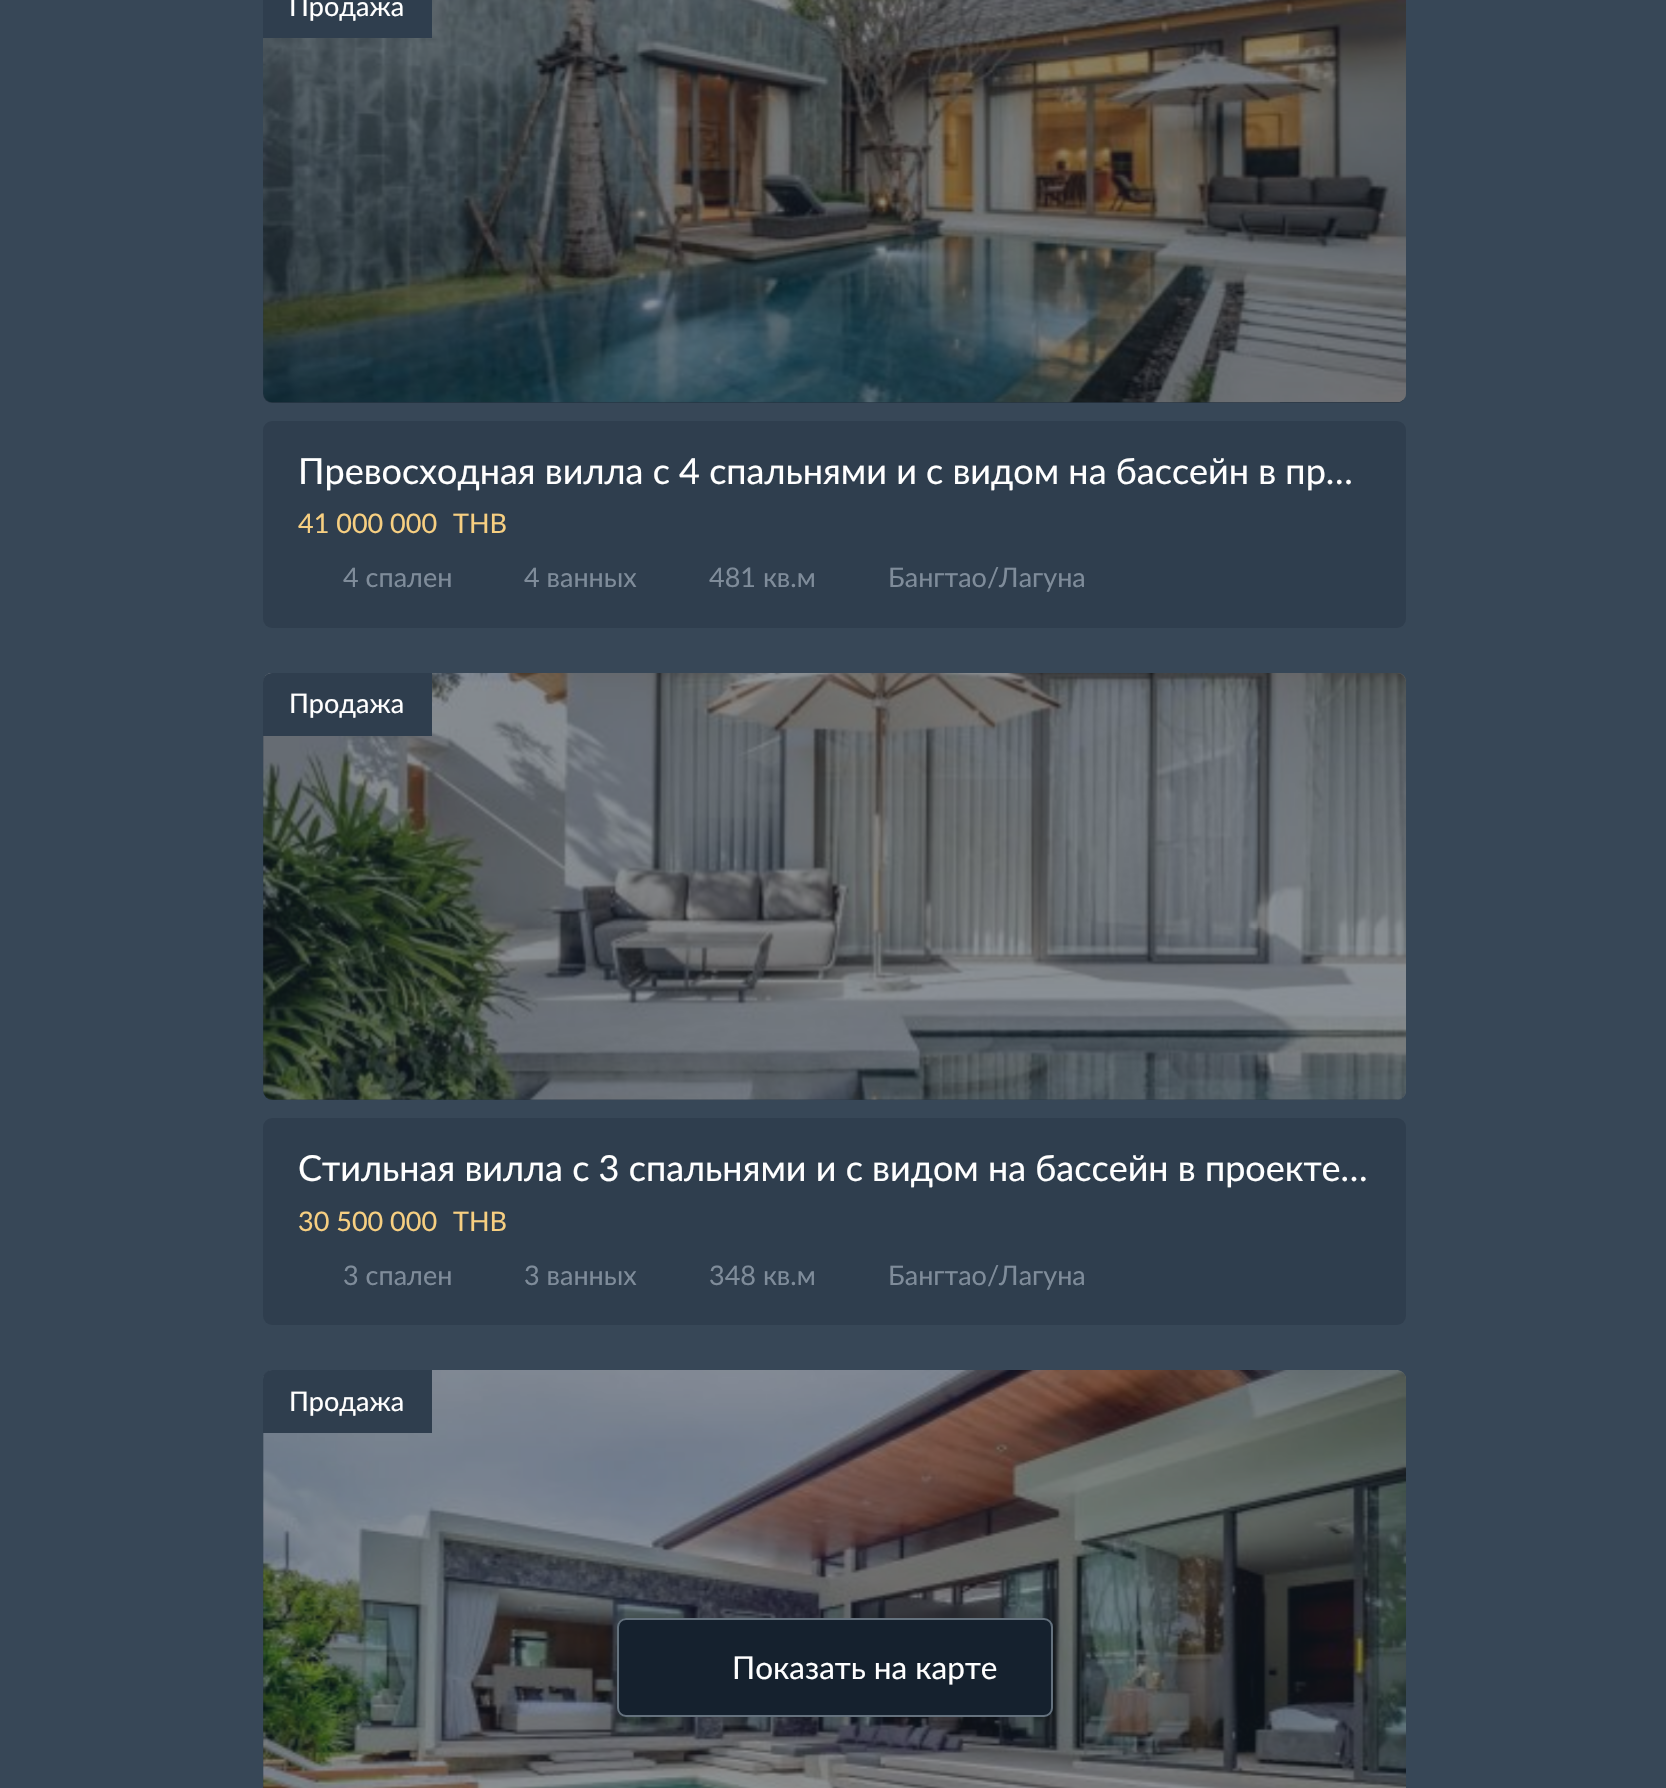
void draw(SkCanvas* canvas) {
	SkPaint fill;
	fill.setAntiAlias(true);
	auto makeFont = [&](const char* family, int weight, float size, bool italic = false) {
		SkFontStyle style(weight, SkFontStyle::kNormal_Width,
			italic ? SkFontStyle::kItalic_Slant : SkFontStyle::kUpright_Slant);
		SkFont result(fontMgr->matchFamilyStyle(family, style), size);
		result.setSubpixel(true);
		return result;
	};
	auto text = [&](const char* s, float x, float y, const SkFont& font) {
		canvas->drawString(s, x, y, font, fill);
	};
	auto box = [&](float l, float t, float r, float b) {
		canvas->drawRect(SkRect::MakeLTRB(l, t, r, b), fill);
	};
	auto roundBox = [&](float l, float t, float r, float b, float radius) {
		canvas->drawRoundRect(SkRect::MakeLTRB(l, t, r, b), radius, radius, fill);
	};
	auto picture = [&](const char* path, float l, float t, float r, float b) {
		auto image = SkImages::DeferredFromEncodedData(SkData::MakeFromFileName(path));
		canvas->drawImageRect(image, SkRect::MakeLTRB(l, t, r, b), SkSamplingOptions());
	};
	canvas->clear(0xFF374757);
	picture("image0.png", 263, 0, 1406, 403);
	fill.setColor(0x8015212E);
	roundBox(263, -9, 1406, 403, 9);
	fill.setColor(0xFF2F3E4E);
	box(263, 0, 432, 38);
	roundBox(263, 421, 1406, 628, 9);
	picture("image1.png", 263, 673, 1406, 1100);
	fill.setColor(0x8015212E);
	roundBox(263, 673, 1406, 1100, 9);
	fill.setColor(0xFF2F3E4E);
	canvas->drawPath(SkPathBuilder().moveTo(272, 673).lineTo(432, 673).lineTo(432, 736).lineTo(263, 736).lineTo(263, 682).cubicTo(263, 677, 267, 673, 272, 673).close().detach(), fill);
	roundBox(263, 1118, 1406, 1325, 9);
	picture("image2.png", 263, 1370, 1406, 1788);
	fill.setColor(0x8015212E);
	roundBox(263, 1370, 1406, 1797, 9);
	fill.setColor(0xFF2F3E4E);
	canvas->drawPath(SkPathBuilder().moveTo(272, 1370).lineTo(432, 1370).lineTo(432, 1433).lineTo(263, 1433).lineTo(263, 1379).cubicTo(263, 1374, 267, 1370, 272, 1370).close().detach(), fill);
	fill.setColor(0xFF15212E);
	roundBox(617, 1618, 1053, 1717, 9);
	fill.setStyle(SkPaint::kStroke_Style);
	fill.setStrokeWidth(2);
	fill.setColor(0xFF65727E);
	canvas->drawRoundRect(SkRect::MakeLTRB(618, 1619, 1052, 1716), 8, 8, fill);
	auto font1 = makeFont("Lato", 400, 27);
	fill.setStyle(SkPaint::kFill_Style);
	fill.setColor(0xFFFFFFFF);
	text("Продажа", 289, 16, font1);
	auto font2 = makeFont("Lato", 400, 36);
	text("Превосходная вилла с 4 спальнями и с видом на бассейн в пр…", 298, 484, font2);
	fill.setColor(0xFFF7CF81);
	text("41 000 000", 298, 533, font1);
	text("THB", 453, 533, font1);
	fill.setColor(0xFF7F8C9A);
	text("4 спален", 343, 587, font1);
	text("4 ванных", 524, 587, font1);
	text("481 кв.м", 709, 587, font1);
	text("Бангтао/Лагуна", 888, 587, font1);
	fill.setColor(0xFFFFFFFF);
	text("Продажа", 289, 713, font1);
	text("Cтильная вилла с 3 спальнями и с видом на бассейн в проекте…", 298, 1181, font2);
	fill.setColor(0xFFF7CF81);
	text("30 500 000", 298, 1231, font1);
	text("THB", 453, 1231, font1);
	fill.setColor(0xFF7F8C9A);
	text("3 спален", 343, 1285, font1);
	text("3 ванных", 524, 1285, font1);
	text("348 кв.м", 709, 1285, font1);
	text("Бангтао/Лагуна", 888, 1285, font1);
	fill.setColor(0xFFFFFFFF);
	text("Продажа", 289, 1411, font1);
	auto font3 = makeFont("Lato", 400, 31.5f);
	text("Показать на карте", 732, 1679, font3);
}
